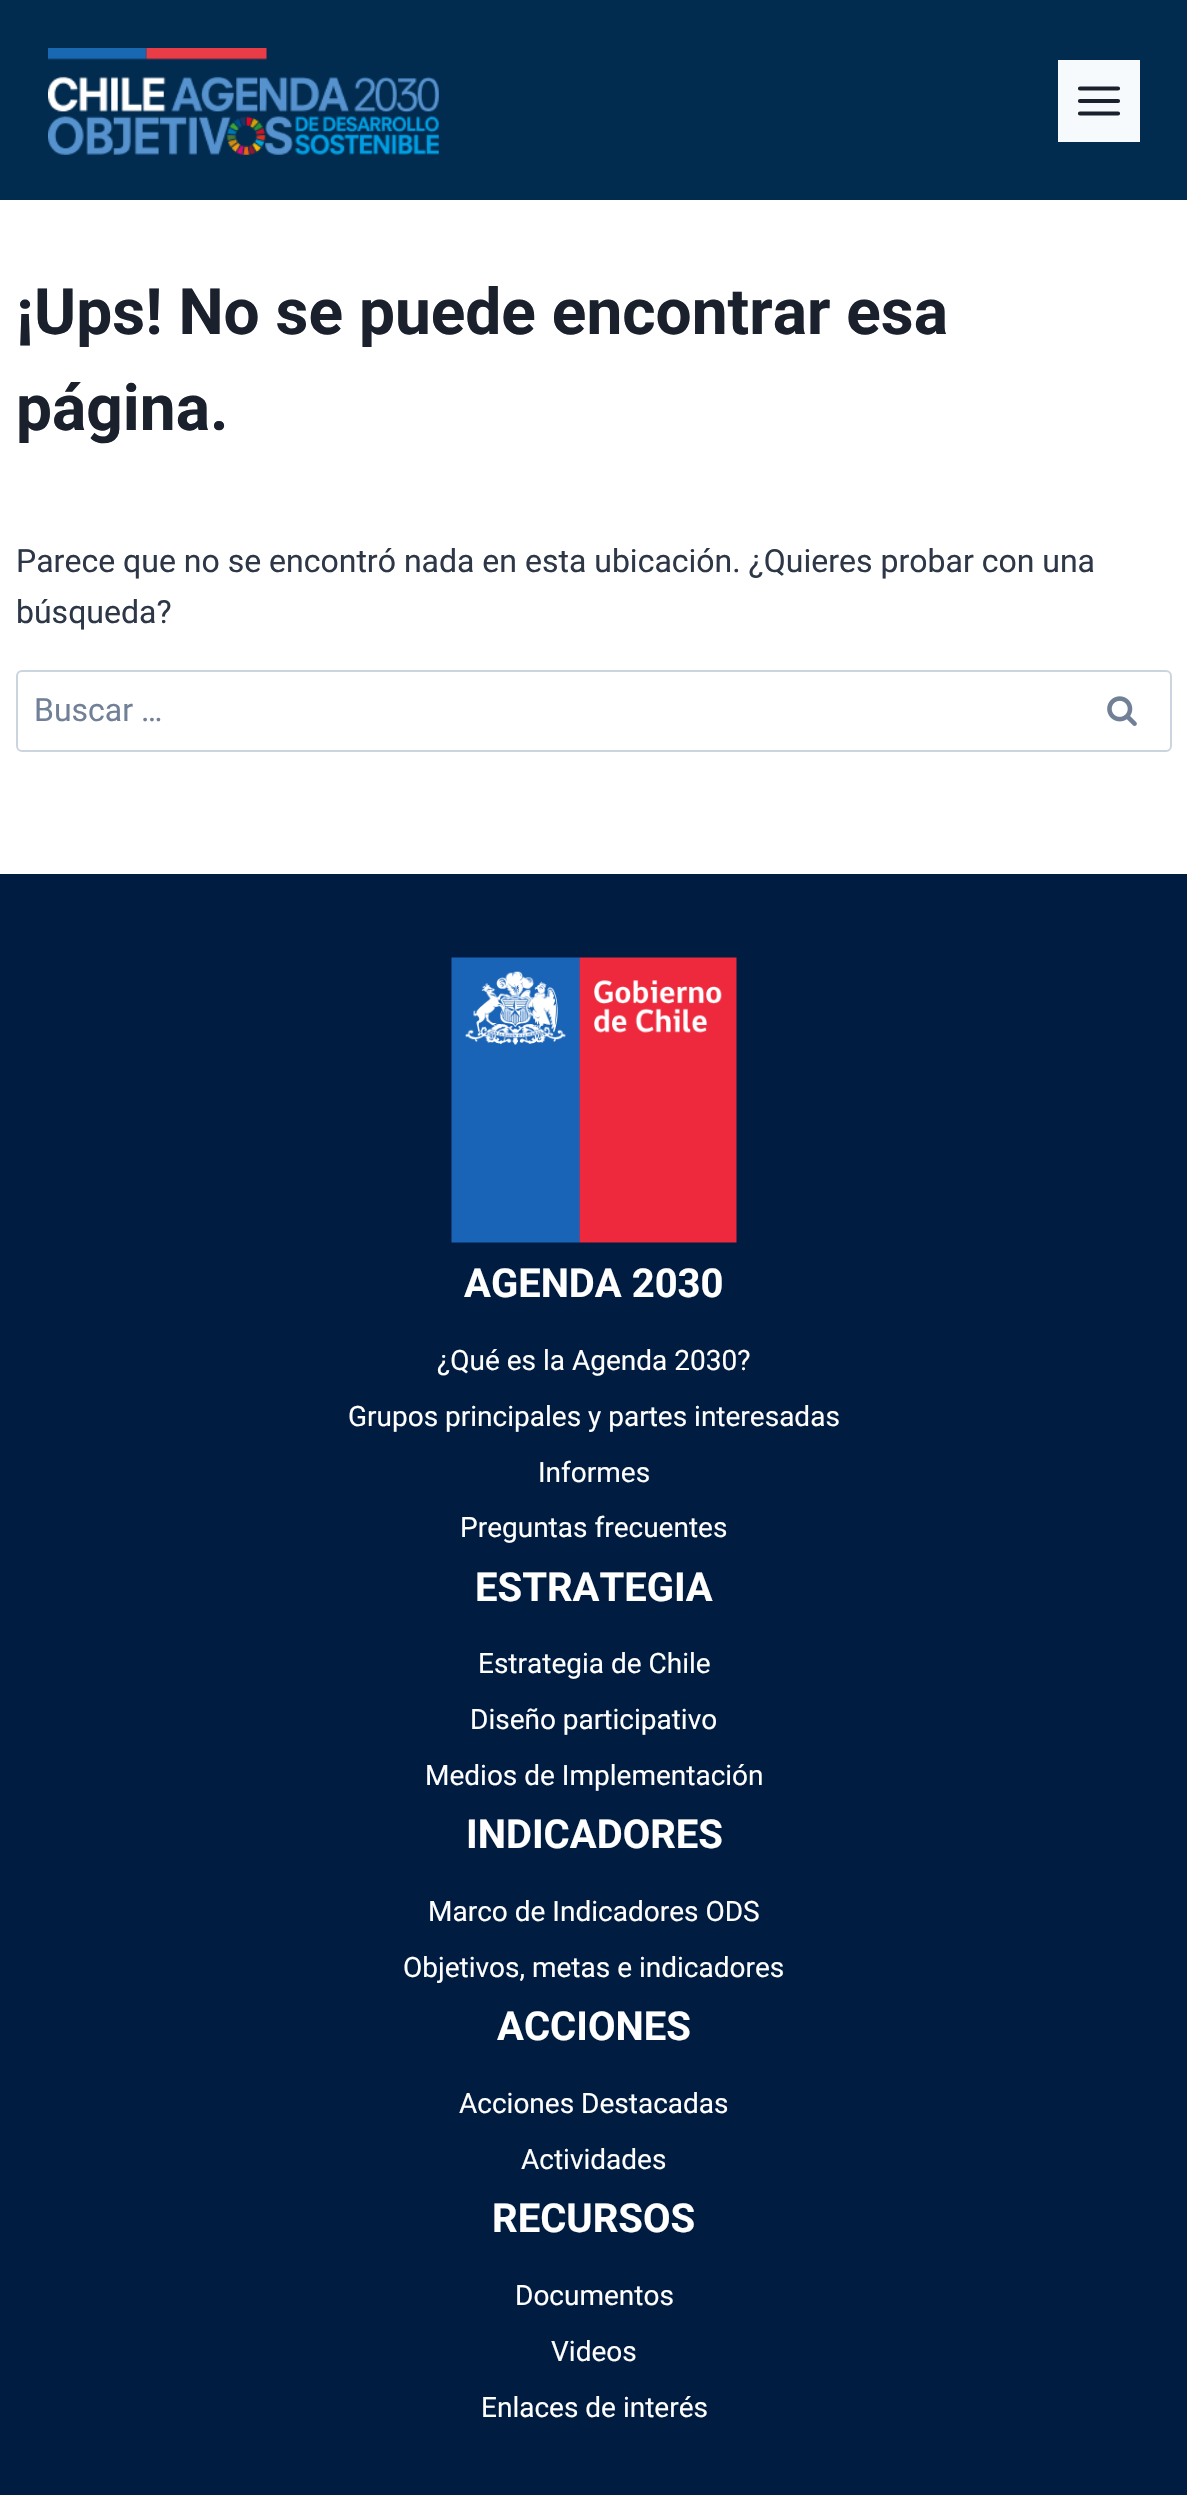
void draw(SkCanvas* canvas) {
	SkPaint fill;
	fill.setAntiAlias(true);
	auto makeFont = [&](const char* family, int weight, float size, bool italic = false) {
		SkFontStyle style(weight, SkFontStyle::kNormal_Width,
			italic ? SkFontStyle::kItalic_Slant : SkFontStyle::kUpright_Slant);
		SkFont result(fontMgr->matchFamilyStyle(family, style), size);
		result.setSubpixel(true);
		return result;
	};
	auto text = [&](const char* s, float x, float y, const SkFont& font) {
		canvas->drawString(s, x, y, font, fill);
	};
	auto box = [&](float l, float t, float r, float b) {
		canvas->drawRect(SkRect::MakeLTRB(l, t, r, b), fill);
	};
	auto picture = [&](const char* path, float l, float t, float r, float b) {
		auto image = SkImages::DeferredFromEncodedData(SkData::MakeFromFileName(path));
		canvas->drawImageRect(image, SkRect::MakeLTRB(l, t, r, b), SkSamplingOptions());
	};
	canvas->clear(0xFFFFFFFF);
	fill.setColor(0xFF012C50);
	box(0, 0, 1187, 200);
	picture("image0.png", 48, 48, 439, 155);
	fill.setColor(0xFFF7FAFC);
	box(1058, 60, 1140, 142);
	fill.setStyle(SkPaint::kStroke_Style);
	fill.setStrokeWidth(4.2f);
	fill.setStrokeCap(SkPaint::kRound_Cap);
	fill.setStrokeJoin(SkPaint::kRound_Join);
	fill.setColor(0xFF1A202C);
	canvas->drawPath(SkPathBuilder().moveTo(1080, 101).lineTo(1118, 101).moveTo(1080, 88.5f).lineTo(1118, 88.5f).moveTo(1080, 113.5f).lineTo(1118, 113.5f).detach(), fill);
	fill.setStrokeWidth(2);
	fill.setStrokeCap(SkPaint::kButt_Cap);
	fill.setStrokeJoin(SkPaint::kMiter_Join);
	fill.setColor(0xFFCBD5E0);
	canvas->drawRoundRect(SkRect::MakeLTRB(17, 671, 1171, 751), 5, 5, fill);
	picture("image1.png", 1107, 696, 1137, 726);
	fill.setStyle(SkPaint::kFill_Style);
	fill.setColor(0xFF001C41);
	box(0, 874, 1187, 2495);
	picture("image2.png", 451, 957, 737, 1243);
	auto font1 = makeFont("Roboto", 700, 64);
	fill.setColor(0xFF1A202C);
	text("¡Ups! No se puede encontrar esa", 16, 334, font1);
	text("página.", 16, 430, font1);
	auto font2 = makeFont("Roboto", 400, 32);
	fill.setColor(0xFF2D3748);
	text("Parece que no se encontró nada en esta ubicación. ¿Quieres probar con una", 16, 572, font2);
	text("búsqueda?", 16, 623, font2);
	fill.setColor(0xFF718096);
	text("Buscar …", 34, 721, font2);
	auto font3 = makeFont("Roboto", 700, 40);
	fill.setColor(0xFFFFFFFF);
	text("AGENDA 2030", 464, 1297, font3);
	auto font4 = makeFont("Roboto", 400, 28);
	text("¿Qué es la Agenda 2030?", 437, 1370, font4);
	text("Grupos principales y partes interesadas", 348, 1426, font4);
	text("Informes", 538, 1482, font4);
	text("Preguntas frecuentes", 460, 1537, font4);
	text("ESTRATEGIA", 475, 1601, font3);
	text("Estrategia de Chile", 478, 1673, font4);
	text("Diseño participativo", 470, 1729, font4);
	text("Medios de Implementación", 425, 1785, font4);
	text("INDICADORES", 466, 1848, font3);
	text("Marco de Indicadores ODS", 428, 1921, font4);
	text("Objetivos, metas e indicadores", 403, 1977, font4);
	text("ACCIONES", 497, 2040, font3);
	text("Acciones Destacadas", 459, 2113, font4);
	text("Actividades", 521, 2169, font4);
	text("RECURSOS", 492, 2232, font3);
	text("Documentos", 515, 2305, font4);
	text("Videos", 551, 2361, font4);
	text("Enlaces de interés", 481, 2417, font4);
}
